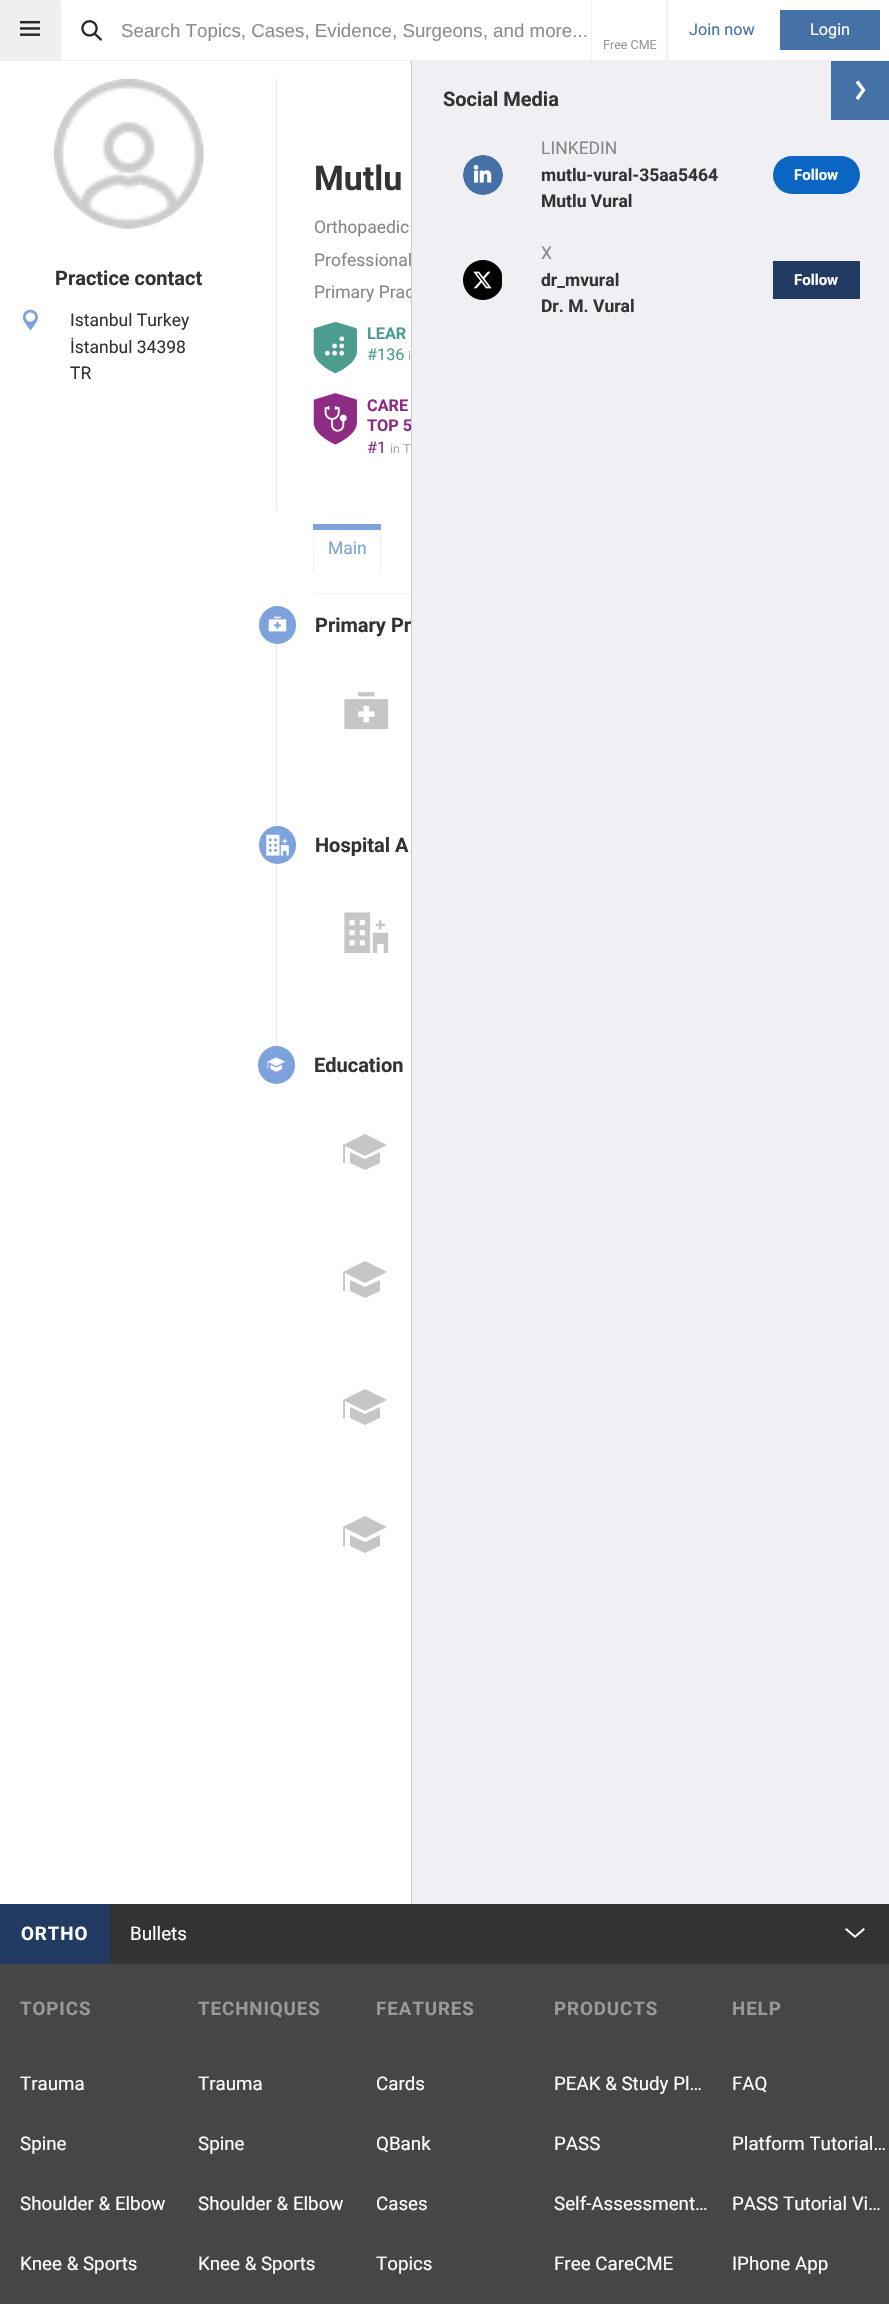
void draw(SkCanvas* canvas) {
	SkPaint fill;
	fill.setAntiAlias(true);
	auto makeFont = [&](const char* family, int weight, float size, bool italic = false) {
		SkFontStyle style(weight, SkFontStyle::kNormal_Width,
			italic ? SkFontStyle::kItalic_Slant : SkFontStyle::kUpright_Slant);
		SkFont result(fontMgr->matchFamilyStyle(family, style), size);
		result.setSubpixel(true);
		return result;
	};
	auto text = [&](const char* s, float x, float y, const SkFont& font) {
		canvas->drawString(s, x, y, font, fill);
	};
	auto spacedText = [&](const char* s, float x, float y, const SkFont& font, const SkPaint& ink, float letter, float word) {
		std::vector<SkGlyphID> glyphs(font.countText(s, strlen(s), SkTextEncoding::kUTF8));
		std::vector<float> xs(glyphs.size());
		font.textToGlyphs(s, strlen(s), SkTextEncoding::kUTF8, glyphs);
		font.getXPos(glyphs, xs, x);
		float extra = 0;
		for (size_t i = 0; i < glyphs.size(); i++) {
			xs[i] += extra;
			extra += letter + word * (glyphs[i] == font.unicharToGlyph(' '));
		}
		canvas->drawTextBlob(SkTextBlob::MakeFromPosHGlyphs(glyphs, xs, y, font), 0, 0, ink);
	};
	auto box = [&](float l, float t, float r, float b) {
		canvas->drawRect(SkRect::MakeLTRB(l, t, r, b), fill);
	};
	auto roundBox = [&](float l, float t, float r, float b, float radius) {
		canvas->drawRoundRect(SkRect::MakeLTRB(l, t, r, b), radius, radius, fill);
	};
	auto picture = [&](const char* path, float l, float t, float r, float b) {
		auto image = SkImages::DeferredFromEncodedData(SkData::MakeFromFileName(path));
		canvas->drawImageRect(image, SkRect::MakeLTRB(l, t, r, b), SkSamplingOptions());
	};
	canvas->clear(0xFFFFFFFF);
	fill.setColor(0xFFEFEFEF);
	box(0, 0, 60, 60);
	picture("image0.png", 20, 20, 40, 36);
	fill.setColor(0xFFEFEFF4);
	box(60, 1, 61, 60);
	picture("image1.png", 81, 20, 102, 41);
	box(668, 0, 669, 60);
	fill.setColor(0xFF4571A7);
	box(780, 10, 880, 50);
	fill.setColor(0xFFEFEFF4);
	box(591, 0, 592, 60);
	fill.setColor(0xFFEBEBEB);
	box(666, 0, 667, 60);
	picture("image2.png", 53, 78, 204, 229);
	picture("image3.png", 22, 309, 38, 331);
	fill.setColor(0xFFEAEAEA);
	box(276, 79, 277, 511);
	picture("image4.png", 313, 322, 357, 374);
	picture("image5.png", 313, 393, 357, 445);
	fill.setColor(0xFFEFEFF4);
	box(313, 593, 411, 594);
	canvas->save();
	canvas->clipRect(SkRect::MakeLTRB(313, 524, 870, 593));
	fill.setStyle(SkPaint::kStroke_Style);
	fill.setStrokeWidth(1.2f);
	canvas->drawPath(SkPathBuilder().moveTo(313.5f, 573).lineTo(313, 533).cubicTo(313, 521, 311, 524.5f, 325, 524.5f).lineTo(369, 524.5f).cubicTo(382.5f, 524.5f, 380.5f, 521, 380.5f, 533).lineTo(380.5f, 573).detach(), fill);
	canvas->restore();
	fill.setStyle(SkPaint::kFill_Style);
	fill.setColor(0xFF7DA2DC);
	box(313, 524, 381, 530);
	fill.setColor(0xFFEAEAEA);
	box(276, 606, 277, 1046);
	fill.setColor(0xFF7DA2DC);
	roundBox(259, 606, 296, 644, 18.5f);
	picture("image6.png", 268, 616, 287, 632);
	picture("image7.png", 344, 692, 389, 730);
	roundBox(259, 826, 296, 864, 18.5f);
	picture("image8.png", 266, 834, 289, 856);
	picture("image9.png", 344, 912, 389, 953);
	roundBox(258, 1046, 295, 1084, 18.5f);
	picture("image10.png", 267, 1057, 285, 1072);
	fill.setColor(0xFFC6C6C6);
	canvas->drawPath(SkPathBuilder().moveTo(345, 1146).lineTo(345, 1163).lineTo(343, 1163).lineTo(343, 1145).lineTo(365, 1134).lineTo(387, 1145).lineTo(365, 1156).close().moveTo(350, 1152).lineTo(365, 1159).lineTo(380, 1152).lineTo(380, 1163).lineTo(365, 1170).lineTo(350, 1163).close().detach(), fill);
	canvas->drawPath(SkPathBuilder().moveTo(345, 1273).lineTo(345, 1291).lineTo(343, 1291).lineTo(343, 1272).lineTo(365, 1261).lineTo(387, 1272).lineTo(365, 1283).close().moveTo(350, 1280).lineTo(365, 1287).lineTo(380, 1280).lineTo(380, 1291).lineTo(365, 1298).lineTo(350, 1291).close().detach(), fill);
	canvas->drawPath(SkPathBuilder().moveTo(345, 1401).lineTo(345, 1418).lineTo(343, 1418).lineTo(343, 1400).lineTo(365, 1389).lineTo(387, 1400).lineTo(365, 1411).close().moveTo(350, 1407).lineTo(365, 1414).lineTo(380, 1407).lineTo(380, 1418).lineTo(365, 1425).lineTo(350, 1418).close().detach(), fill);
	canvas->drawPath(SkPathBuilder().moveTo(345, 1528).lineTo(345, 1546).lineTo(343, 1546).lineTo(343, 1527).lineTo(365, 1516).lineTo(387, 1527).lineTo(365, 1538).close().moveTo(350, 1535).lineTo(365, 1542).lineTo(380, 1535).lineTo(380, 1546).lineTo(365, 1553).lineTo(350, 1546).close().detach(), fill);
	fill.setColor(0xFF464646);
	box(0, 1964, 889, 2304);
	fill.setColor(0xFF333333);
	box(110, 1904, 889, 1964);
	fill.setColor(0xFF223B63);
	box(0, 1904, 110, 1964);
	fill.setColor(0xFFFFFFFF);
	canvas->drawPath(SkPathBuilder().moveTo(846.5f, 1928).lineTo(845, 1929.5f).lineTo(855, 1938).lineTo(865, 1929.5f).lineTo(863.5f, 1928).lineTo(855, 1935.5f).close().detach(), fill);
	auto font1 = makeFont("Liberation Sans", 400, 18.75f);
	fill.setColor(0xFF8D8D8D);
	text("Search Topics, Cases, Evidence, Surgeons, and more...", 121, 37, font1);
	auto font2 = makeFont("Roboto", 400, 16.25f);
	fill.setColor(0xFF4571A7);
	text("Join now", 689, 35, font2);
	fill.setColor(0xFFFFFFFF);
	text("Login", 810, 35, font2);
	auto font3 = makeFont("Roboto", 400, 12.5f);
	fill.setColor(0xFF999999);
	text("Free CME", 603, 49, font3);
	auto font4 = makeFont("Roboto", 700, 20);
	fill.setColor(0xFF333333);
	text("Practice contact", 55, 285, font4);
	auto font5 = makeFont("Roboto", 400, 17.5f);
	text("Istanbul Turkey", 70, 326, font5);
	text("İstanbul 34398", 70, 353, font5);
	text("TR", 70, 379, font5);
	auto font6 = makeFont("Roboto", 700, 34);
	text("Mutlu", 314, 190, font6);
	fill.setColor(0xFF878787);
	text("Orthopaedic", 314, 233, font5);
	text("Professional", 314, 266, font5);
	text("Primary Prac", 314, 298, font5);
	auto font7 = makeFont("Roboto", 700, 16.25f);
	fill.setColor(0xFF4D9C90);
	text("LEAR", 367, 339, font7);
	text("#136", 367, 360, font2);
	fill.setColor(0xFFABABAB);
	text("i", 408, 360, font3);
	fill.setColor(0xFF8E2C85);
	text("CARE", 367, 411, font7);
	text("TOP 5", 367, 431, font7);
	text("#1", 367, 453, font2);
	fill.setColor(0xFFABABAB);
	text("in T", 390, 453, font3);
	fill.setColor(0xFF7DA2DC);
	text("Main", 328, 554, font5);
	fill.setColor(0xFF333333);
	text("Primary Pr", 315, 632, font4);
	text("Hospital A", 315, 852, font4);
	text("Education", 314, 1072, font4);
	fill.setColor(0xFFEFEFF4);
	box(412, 61, 889, 1904);
	fill.setColor(0xFFC6CBD7);
	box(411, 60, 412, 1904);
	fill.setColor(0xFFEFEFF4);
	box(0, 60, 889, 61);
	fill.setColor(0xFF333333);
	text("Social Media", 443, 106, font4);
	picture("image11.png", 463, 155, 503, 195);
	fill.setColor(0xFF878787);
	text("LINKEDIN", 541, 154, font5);
	auto font8 = makeFont("Roboto", 700, 17.5f);
	fill.setColor(0xFF333333);
	text("mutlu-vural-35aa5464", 541, 181, font8);
	text("Mutlu Vural", 541, 207, font8);
	fill.setColor(0xFF0A66C2);
	roundBox(773, 156, 860, 194, 19);
	auto font9 = makeFont("Roboto", 700, 15);
	fill.setColor(0xFFFFFFFF);
	text("Follow", 794, 180, font9);
	picture("image12.png", 463, 260, 502, 300);
	fill.setColor(0xFF878787);
	text("X", 541, 259, font5);
	fill.setColor(0xFF333333);
	text("dr_mvural", 541, 286, font8);
	text("Dr. M. Vural", 541, 312, font8);
	fill.setColor(0xFF223B63);
	box(773, 261, 860, 299);
	fill.setColor(0xFFFFFFFF);
	text("Follow", 794, 285, font9);
	fill.setColor(0xFF4571A7);
	box(831, 61, 889, 120);
	fill.setColor(0xFFFFFFFF);
	canvas->drawPath(SkPathBuilder().moveTo(855.5f, 98).lineTo(858.5f, 100).lineTo(865.5f, 90).lineTo(858.5f, 80.5f).lineTo(855.5f, 82.5f).lineTo(861.5f, 90).close().detach(), fill);
	auto font10 = makeFont("Roboto", 700, 18.75f);
	spacedText("ORTHO", 21, 1940, font10, fill, 0.9f, 0);
	auto font11 = makeFont("Roboto", 400, 18.75f);
	text("Bullets", 130, 1940, font11);
	fill.setColor(0xFF999999);
	spacedText("TOPICS", 20, 2015, font10, fill, 0.9f, 0);
	fill.setColor(0xFFFFFFFF);
	text("Trauma", 20, 2090, font11);
	text("Spine", 20, 2150, font11);
	text("Shoulder & Elbow", 20, 2210, font11);
	text("Knee & Sports", 20, 2270, font11);
	fill.setColor(0xFF999999);
	spacedText("TECHNIQUES", 198, 2015, font10, fill, 0.9f, 0);
	fill.setColor(0xFFFFFFFF);
	text("Trauma", 198, 2090, font11);
	text("Spine", 198, 2150, font11);
	text("Shoulder & Elbow", 198, 2210, font11);
	text("Knee & Sports", 198, 2270, font11);
	fill.setColor(0xFF999999);
	spacedText("FEATURES", 376, 2015, font10, fill, 0.9f, 0);
	fill.setColor(0xFFFFFFFF);
	text("Cards", 376, 2090, font11);
	text("QBank", 376, 2150, font11);
	text("Cases", 376, 2210, font11);
	text("Topics", 376, 2270, font11);
	fill.setColor(0xFF999999);
	spacedText("PRODUCTS", 554, 2015, font10, fill, 0.9f, 0);
	fill.setColor(0xFFFFFFFF);
	text("PEAK & Study Pl…", 554, 2090, font11);
	text("PASS", 554, 2150, font11);
	text("Self-Assessment…", 554, 2210, font11);
	text("Free CareCME", 554, 2270, font11);
	fill.setColor(0xFF999999);
	spacedText("HELP", 732, 2015, font10, fill, 0.9f, 0);
	fill.setColor(0xFFFFFFFF);
	text("FAQ", 732, 2090, font11);
	text("Platform Tutorial…", 732, 2150, font11);
	text("PASS Tutorial Vi…", 732, 2210, font11);
	text("IPhone App", 732, 2270, font11);
}
